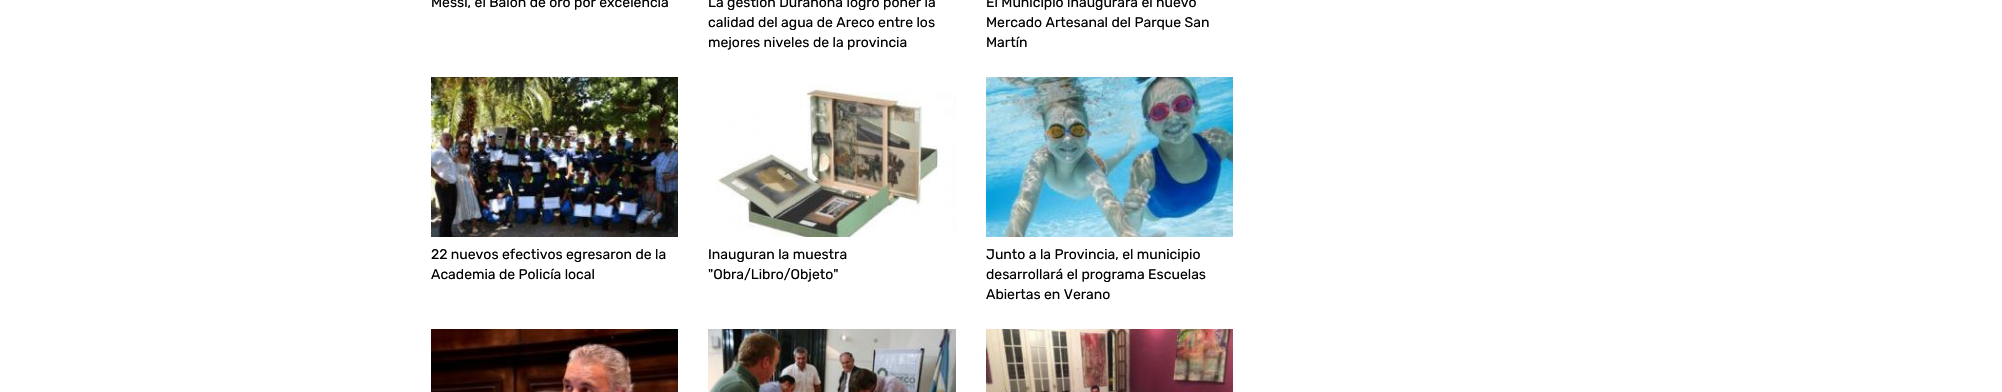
void draw(SkCanvas* canvas) {
	SkPaint fill;
	fill.setAntiAlias(true);
	auto makeFont = [&](const char* family, int weight, float size, bool italic = false) {
		SkFontStyle style(weight, SkFontStyle::kNormal_Width,
			italic ? SkFontStyle::kItalic_Slant : SkFontStyle::kUpright_Slant);
		SkFont result(fontMgr->matchFamilyStyle(family, style), size);
		result.setSubpixel(true);
		return result;
	};
	auto text = [&](const char* s, float x, float y, const SkFont& font) {
		canvas->drawString(s, x, y, font, fill);
	};
	auto picture = [&](const char* path, float l, float t, float r, float b) {
		auto image = SkImages::DeferredFromEncodedData(SkData::MakeFromFileName(path));
		canvas->drawImageRect(image, SkRect::MakeLTRB(l, t, r, b), SkSamplingOptions());
	};
	canvas->clear(0xFFFFFFFF);
	picture("image0.png", 431, 77, 678, 237);
	picture("image1.png", 715, 85, 956, 237);
	picture("image2.png", 986, 77, 1233, 237);
	picture("image3.png", 431, 329, 678, 392);
	picture("image4.png", 708, 329, 956, 392);
	picture("image5.png", 986, 329, 1233, 392);
	auto font1 = makeFont("Rubik", 400, 14);
	fill.setColor(0xFF000000);
	text("Messi, el Balón de oro por excelencia", 431, 7, font1);
	text("La gestión Durañona logró poner la", 708, 7, font1);
	text("calidad del agua de Areco entre los", 708, 27, font1);
	text("mejores niveles de la provincia", 708, 47, font1);
	text("El Municipio inaugurará el nuevo", 986, 7, font1);
	text("Mercado Artesanal del Parque San", 986, 27, font1);
	text("Martín", 986, 47, font1);
	text("22 nuevos efectivos egresaron de la", 431, 259, font1);
	text("Academia de Policía local", 431, 279, font1);
	text("Inauguran la muestra", 708, 259, font1);
	text("\"Obra/Libro/Objeto\"", 708, 279, font1);
	text("Junto a la Provincia, el municipio", 986, 259, font1);
	text("desarrollará el programa Escuelas", 986, 279, font1);
	text("Abiertas en Verano", 986, 299, font1);
}
